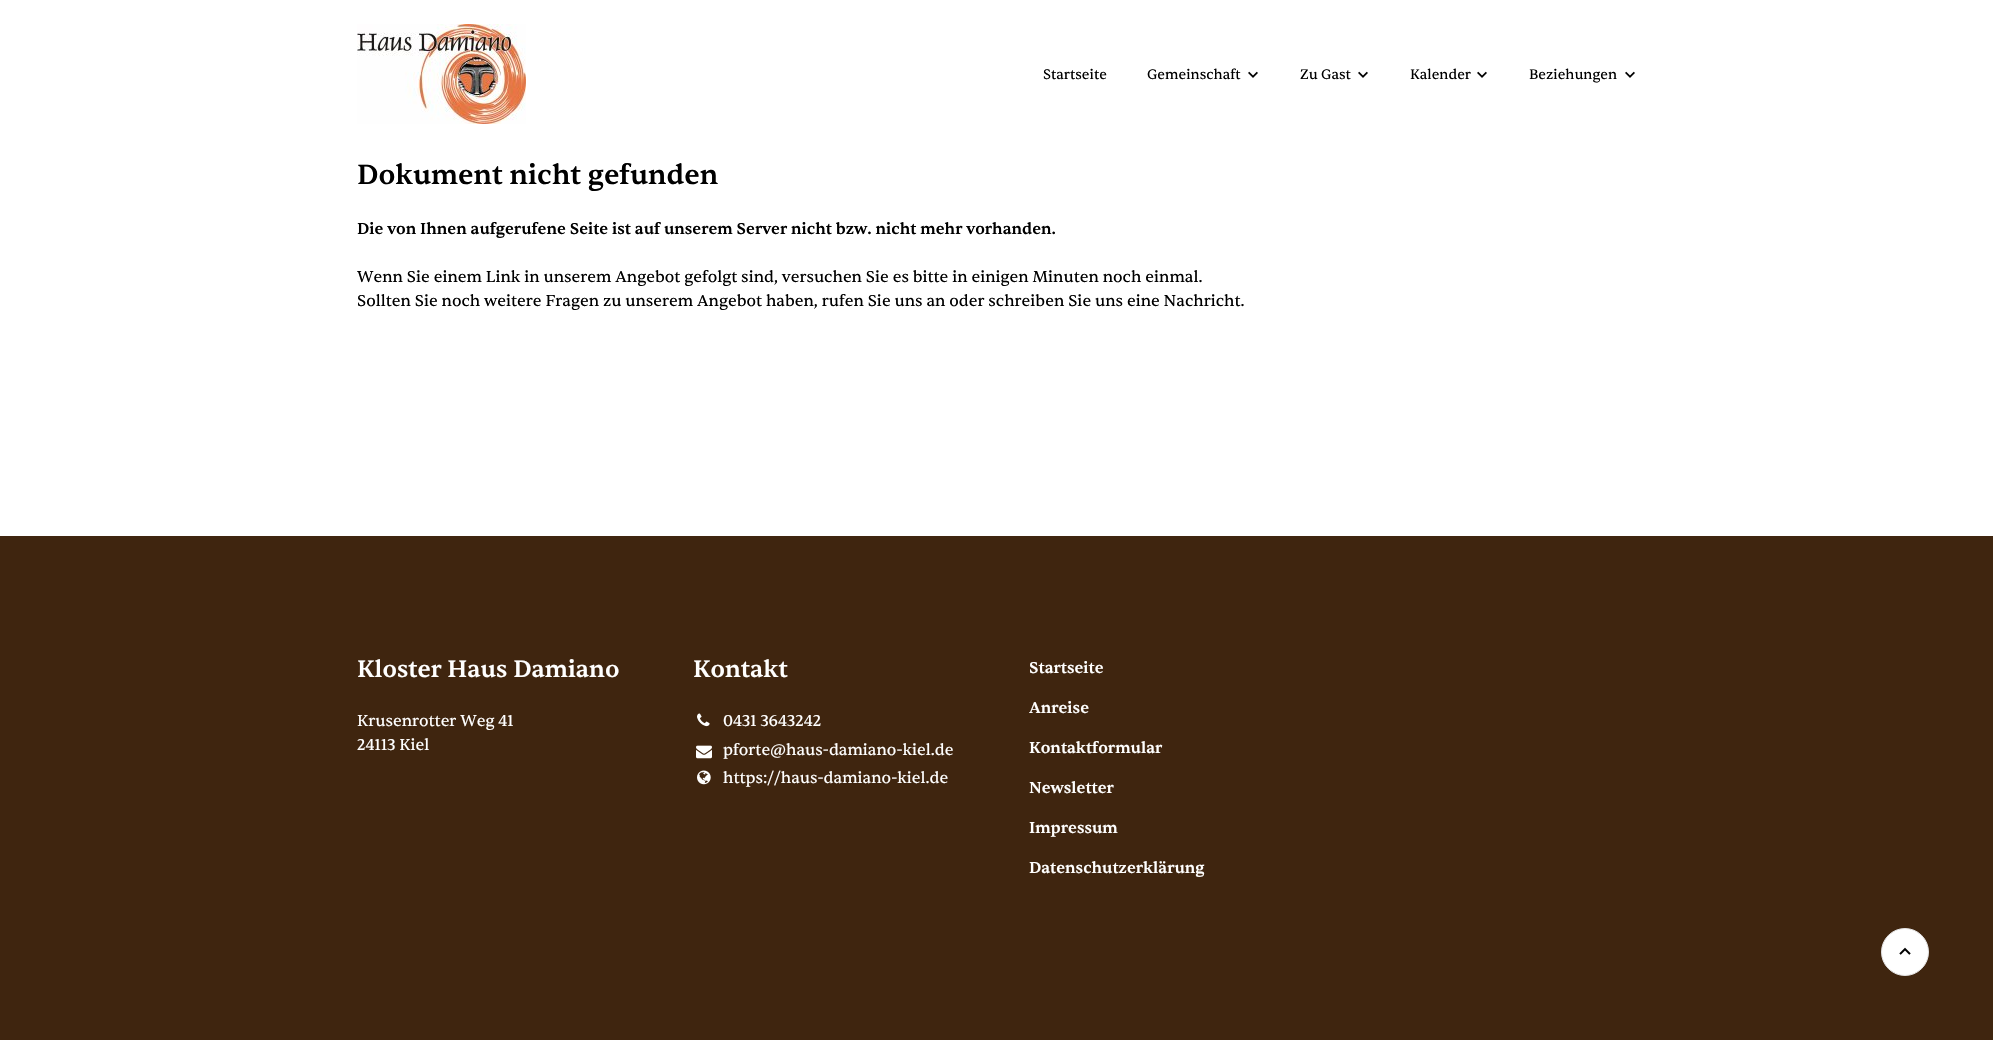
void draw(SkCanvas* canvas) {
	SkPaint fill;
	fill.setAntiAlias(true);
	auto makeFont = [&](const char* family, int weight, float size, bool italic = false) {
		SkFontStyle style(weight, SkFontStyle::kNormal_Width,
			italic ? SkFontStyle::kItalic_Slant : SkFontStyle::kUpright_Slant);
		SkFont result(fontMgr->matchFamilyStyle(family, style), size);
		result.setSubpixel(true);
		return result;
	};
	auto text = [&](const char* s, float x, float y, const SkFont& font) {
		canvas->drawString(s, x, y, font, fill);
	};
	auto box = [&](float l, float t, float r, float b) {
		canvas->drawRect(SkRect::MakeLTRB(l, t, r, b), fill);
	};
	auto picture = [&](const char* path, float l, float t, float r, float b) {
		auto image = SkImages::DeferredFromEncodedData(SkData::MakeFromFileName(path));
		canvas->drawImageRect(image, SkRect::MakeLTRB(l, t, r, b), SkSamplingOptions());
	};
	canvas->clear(0xFFFFFFFF);
	picture("image0.png", 357, 24, 526, 124);
	picture("image1.png", 1248, 71, 1258, 78);
	picture("image1.png", 1358, 71, 1368, 78);
	picture("image1.png", 1477, 71, 1487, 78);
	picture("image1.png", 1625, 71, 1635, 78);
	fill.setColor(0xFF3F250F);
	box(0, 536, 1993, 1040);
	picture("image2.png", 697, 713, 710, 727);
	picture("image3.png", 696, 745, 712, 759);
	picture("image4.png", 697, 770, 711, 785);
	fill.setColor(0xFFFFFFFF);
	canvas->drawCircle(1905, 952, 23.5f, fill);
	fill.setStyle(SkPaint::kStroke_Style);
	fill.setStrokeWidth(1);
	fill.setColor(0xFFE3E3E3);
	canvas->drawCircle(1905, 952, 23.5f, fill);
	picture("image5.png", 1899, 947, 1911, 955);
	auto font1 = makeFont("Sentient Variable", 400, 14);
	fill.setStyle(SkPaint::kFill_Style);
	fill.setColor(0xFF000000);
	text("Startseite", 1043, 79, font1);
	text("Gemeinschaft", 1147, 79, font1);
	text("Zu Gast", 1300, 79, font1);
	text("Kalender", 1410, 79, font1);
	text("Beziehungen", 1529, 79, font1);
	auto font2 = makeFont("Sentient Variable", 500, 28);
	text("Dokument nicht gefunden", 357, 184, font2);
	auto font3 = makeFont("Sentient Variable", 500, 16);
	text("Die von Ihnen aufgerufene Seite ist auf unserem Server nicht bzw. nicht mehr vorhanden.", 357, 234, font3);
	auto font4 = makeFont("Sentient Variable", 400, 16);
	text("Wenn Sie einem Link in unserem Angebot gefolgt sind, versuchen Sie es bitte in einigen Minuten noch einmal.", 357, 282, font4);
	text("Sollten Sie noch weitere Fragen zu unserem Angebot haben, rufen Sie uns an oder schreiben Sie uns eine Nachricht.", 357, 306, font4);
	auto font5 = makeFont("Sentient Variable", 500, 24);
	fill.setColor(0xFFFFFFFF);
	text("Kloster Haus Damiano", 357, 677, font5);
	text("Krusenrotter Weg 41", 357, 726, font4);
	text("24113 Kiel", 357, 750, font4);
	text("Kontakt", 693, 677, font5);
	text("0431 3643242", 723, 726, font4);
	text("pforte@haus-damiano-kiel.de", 723, 755, font4);
	text("https://haus-damiano-kiel.de", 723, 783, font4);
	text("Startseite", 1029, 673, font3);
	text("Anreise", 1029, 713, font3);
	text("Kontaktformular", 1029, 753, font3);
	text("Newsletter", 1029, 793, font3);
	text("Impressum", 1029, 833, font3);
	text("Datenschutzerklärung", 1029, 873, font3);
}
